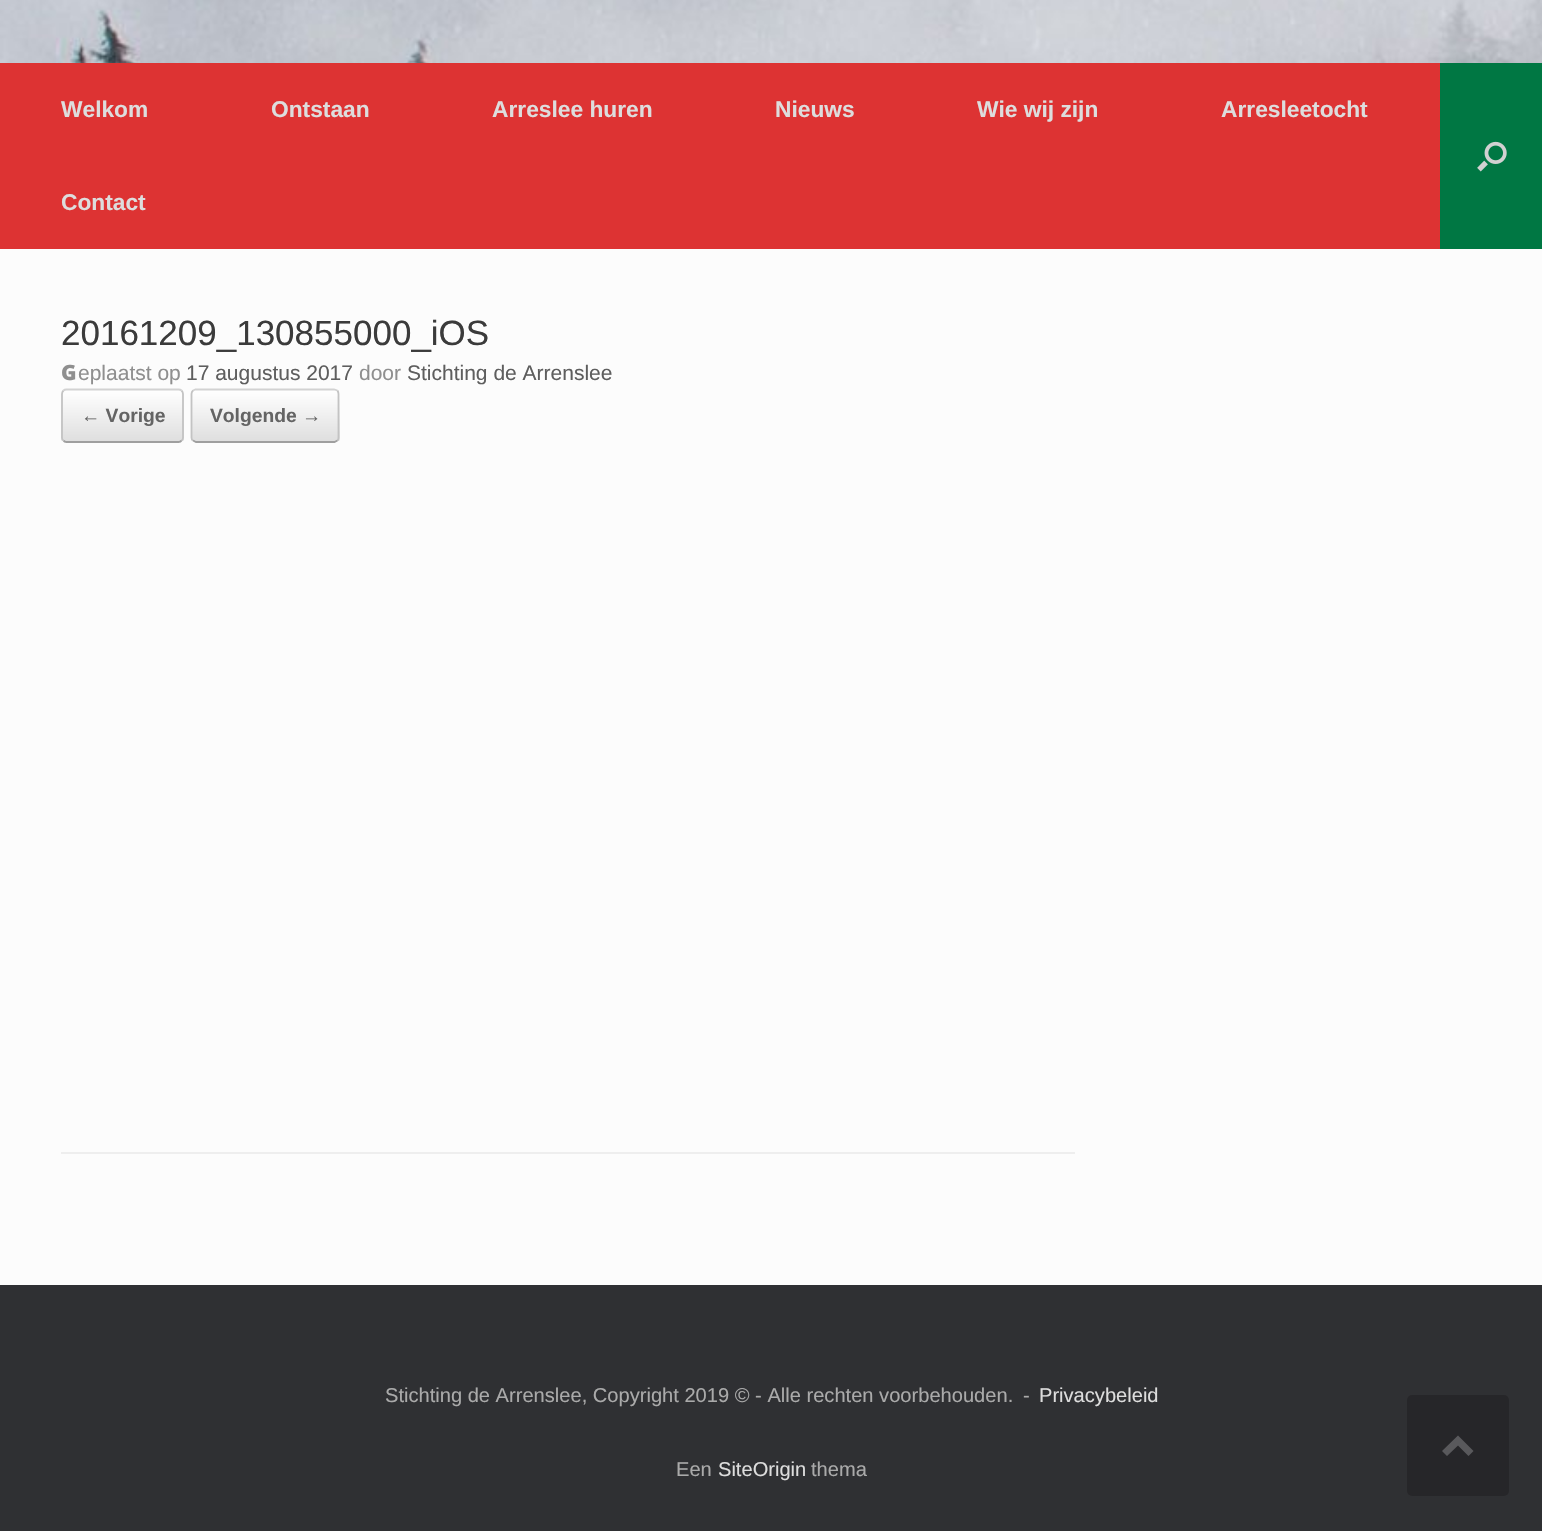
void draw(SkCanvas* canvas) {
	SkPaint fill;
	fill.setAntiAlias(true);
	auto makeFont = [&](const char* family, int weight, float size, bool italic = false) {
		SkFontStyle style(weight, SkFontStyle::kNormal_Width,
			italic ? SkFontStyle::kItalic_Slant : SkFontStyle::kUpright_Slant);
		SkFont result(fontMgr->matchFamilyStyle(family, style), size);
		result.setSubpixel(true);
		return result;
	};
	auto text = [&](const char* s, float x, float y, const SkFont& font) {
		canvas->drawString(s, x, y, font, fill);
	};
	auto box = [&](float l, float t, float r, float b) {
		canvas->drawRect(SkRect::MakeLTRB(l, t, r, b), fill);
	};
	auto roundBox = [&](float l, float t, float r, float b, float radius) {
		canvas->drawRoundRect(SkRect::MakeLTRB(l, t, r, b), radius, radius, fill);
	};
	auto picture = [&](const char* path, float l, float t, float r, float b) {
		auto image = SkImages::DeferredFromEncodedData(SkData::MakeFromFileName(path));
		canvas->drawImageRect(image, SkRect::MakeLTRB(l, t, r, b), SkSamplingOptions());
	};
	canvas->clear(0xFF2F3033);
	picture("image0.png", 0, 0, 1542, 63);
	fill.setColor(0xFFDD3333);
	box(0, 63, 1440, 249);
	fill.setColor(0xFF007743);
	box(1440, 63, 1542, 249);
	picture("image1.png", 1477, 141, 1507, 172);
	fill.setColor(0xFFFCFCFC);
	box(0, 249, 1542, 1285);
	fill.setColor(0xFFEEEEEE);
	box(61, 1152, 1075, 1154);
	canvas->save();
	canvas->clipPath(SkPathBuilder().moveTo(66, 389).lineTo(179, 389).cubicTo(182, 389, 184, 391, 184, 394).lineTo(184, 438).cubicTo(184, 441, 182, 443, 179, 443).lineTo(66, 443).cubicTo(63, 443, 61, 441, 61, 438).lineTo(61, 394).cubicTo(61, 391, 63, 389, 66, 389).close().detach(), true);
	{
		const SkColor colors[] = {0xFFDFDFDF, 0xFFFFFFFF};
		const float stops[] = {0, 1};
		const SkPoint ends[] = {{63, 441}, {63, 390}};
		fill.setShader(SkGradientShader::MakeLinear(ends, colors, stops, 2, SkTileMode::kClamp));
		fill.setAlpha(255);
	}
	box(61, 390, 184, 441);
	{
		const SkColor colors[] = {0xFFDFDFDF, 0xFFFFFFFF};
		const float stops[] = {0, 1};
		const SkPoint ends[] = {{63, 492}, {63, 441}};
		fill.setShader(SkGradientShader::MakeLinear(ends, colors, stops, 2, SkTileMode::kClamp));
		fill.setAlpha(255);
	}
	box(61, 441, 184, 443);
	canvas->restore();
	fill.setStyle(SkPaint::kStroke_Style);
	fill.setStrokeWidth(1.8f);
	fill.setShader(nullptr);
	fill.setColor(0xFFD2D2D2);
	canvas->drawPath(SkPathBuilder().moveTo(63.5f, 390.5f).cubicTo(64, 390, 65.5f, 389.5f, 66.5f, 389.5f).lineTo(178.5f, 389.5f).cubicTo(179.5f, 389.5f, 181, 390, 181.5f, 390.5f).detach(), fill);
	fill.setColor(0xFFC3C3C3);
	canvas->drawPath(SkPathBuilder().moveTo(181.5f, 390.5f).cubicTo(182.5f, 391.5f, 183, 392.5f, 183, 394).lineTo(183, 437.5f).cubicTo(183, 438.5f, 182.5f, 440, 181.5f, 440.5f).detach(), fill);
	fill.setColor(0xFF9F9F9F);
	canvas->drawPath(SkPathBuilder().moveTo(181.5f, 440.5f).cubicTo(181, 441.5f, 179.5f, 442, 178.5f, 442).lineTo(66.5f, 442).cubicTo(65.5f, 442, 64, 441.5f, 63.5f, 440.5f).detach(), fill);
	fill.setColor(0xFFC3C3C3);
	canvas->drawPath(SkPathBuilder().moveTo(63.5f, 440.5f).cubicTo(62.5f, 440, 62, 438.5f, 62, 437.5f).lineTo(62, 394).cubicTo(62, 392.5f, 62.5f, 391.5f, 63.5f, 390.5f).detach(), fill);
	canvas->save();
	canvas->clipPath(SkPathBuilder().moveTo(196, 389).lineTo(335, 389).cubicTo(338, 389, 340, 391, 340, 394).lineTo(340, 438).cubicTo(340, 441, 338, 443, 335, 443).lineTo(196, 443).cubicTo(193, 443, 191, 441, 191, 438).lineTo(191, 394).cubicTo(191, 391, 193, 389, 196, 389).close().detach(), true);
	fill.setStyle(SkPaint::kFill_Style);
	{
		const SkColor colors[] = {0xFFDFDFDF, 0xFFFFFFFF};
		const float stops[] = {0, 1};
		const SkPoint ends[] = {{193, 441}, {193, 390}};
		fill.setShader(SkGradientShader::MakeLinear(ends, colors, stops, 2, SkTileMode::kClamp));
		fill.setAlpha(255);
	}
	box(191, 390, 340, 441);
	{
		const SkColor colors[] = {0xFFDFDFDF, 0xFFFFFFFF};
		const float stops[] = {0, 1};
		const SkPoint ends[] = {{193, 492}, {193, 441}};
		fill.setShader(SkGradientShader::MakeLinear(ends, colors, stops, 2, SkTileMode::kClamp));
		fill.setAlpha(255);
	}
	box(191, 441, 340, 443);
	canvas->restore();
	fill.setStyle(SkPaint::kStroke_Style);
	fill.setShader(nullptr);
	fill.setColor(0xFFD2D2D2);
	canvas->drawPath(SkPathBuilder().moveTo(193, 390.5f).lineTo(195.5f, 389.5f).lineTo(311, 389.5f).lineTo(334, 389.5f).lineTo(337.5f, 390.5f).detach(), fill);
	fill.setColor(0xFFC3C3C3);
	canvas->drawPath(SkPathBuilder().moveTo(337.5f, 390.5f).cubicTo(338, 391.5f, 338.5f, 392.5f, 338.5f, 394).lineTo(338.5f, 437.5f).cubicTo(338.5f, 438.5f, 338, 440, 337.5f, 440.5f).detach(), fill);
	fill.setColor(0xFF9F9F9F);
	canvas->drawPath(SkPathBuilder().moveTo(337.5f, 440.5f).lineTo(334.5f, 442).lineTo(219, 442).lineTo(196, 442).lineTo(193, 440.5f).detach(), fill);
	fill.setColor(0xFFC3C3C3);
	canvas->drawPath(SkPathBuilder().moveTo(193, 440.5f).cubicTo(192, 440, 191.5f, 438.5f, 191.5f, 437.5f).lineTo(191.5f, 394).cubicTo(191.5f, 392.5f, 192, 391.5f, 193, 390.5f).detach(), fill);
	fill.setStyle(SkPaint::kFill_Style);
	fill.setColor(0xFF262629);
	roundBox(1407, 1395, 1509, 1496, 5);
	fill.setColor(0xFF59595C);
	canvas->drawPath(SkPathBuilder().moveTo(1473.5f, 1451).lineTo(1458, 1435.5f).lineTo(1442, 1451).lineTo(1447, 1456).lineTo(1458, 1445.5f).lineTo(1468.5f, 1456).close().detach(), fill);
	auto font1 = makeFont("Liberation Sans", 700, 22.75f);
	fill.setColor(0xFFDDDDDD);
	text("Welkom", 61, 117, font1);
	text("Ontstaan", 271, 117, font1);
	text("Arreslee huren", 492, 117, font1);
	text("Nieuws", 775, 117, font1);
	text("Wie wij zijn", 977, 117, font1);
	text("Arresleetocht", 1221, 117, font1);
	text("Contact", 61, 210, font1);
	auto font2 = makeFont("Liberation Sans", 400, 35);
	fill.setColor(0xFF3B3B3B);
	text("20161209_130855000_iOS", 61, 345, font2);
	auto font3 = makeFont("Noto Sans", 900, 21);
	fill.setColor(0xFF8F8F8F);
	text("G", 61, 380, font3);
	auto font4 = makeFont("Liberation Sans", 400, 21);
	text("eplaatst op", 78, 380, font4);
	fill.setColor(0xFF5E5E5E);
	text("17 augustus 2017", 186, 380, font4);
	fill.setColor(0xFF8F8F8F);
	text("door", 359, 380, font4);
	fill.setColor(0xFF5E5E5E);
	text("Stichting de Arrenslee", 407, 380, font4);
	auto font5 = makeFont("Liberation Sans", 700, 19.25f);
	fill.setColor(0xFF646464);
	text("← Vorige", 81, 422, font5);
	text("Volgende →", 210, 422, font5);
	auto font6 = makeFont("Liberation Sans", 400, 20.1f);
	fill.setColor(0xFFAAAAAA);
	text("Stichting de Arrenslee, Copyright 2019 © - Alle rechten voorbehouden.", 385, 1402, font6);
	text("-", 1023, 1402, font6);
	fill.setColor(0xFFDDDDDD);
	text("Privacybeleid", 1039, 1402, font6);
	fill.setColor(0xFFAAAAAA);
	text("Een", 676, 1476, font6);
	fill.setColor(0xFFDDDDDD);
	text("SiteOrigin", 718, 1476, font6);
	fill.setColor(0xFFAAAAAA);
	text("thema", 811, 1476, font6);
}
